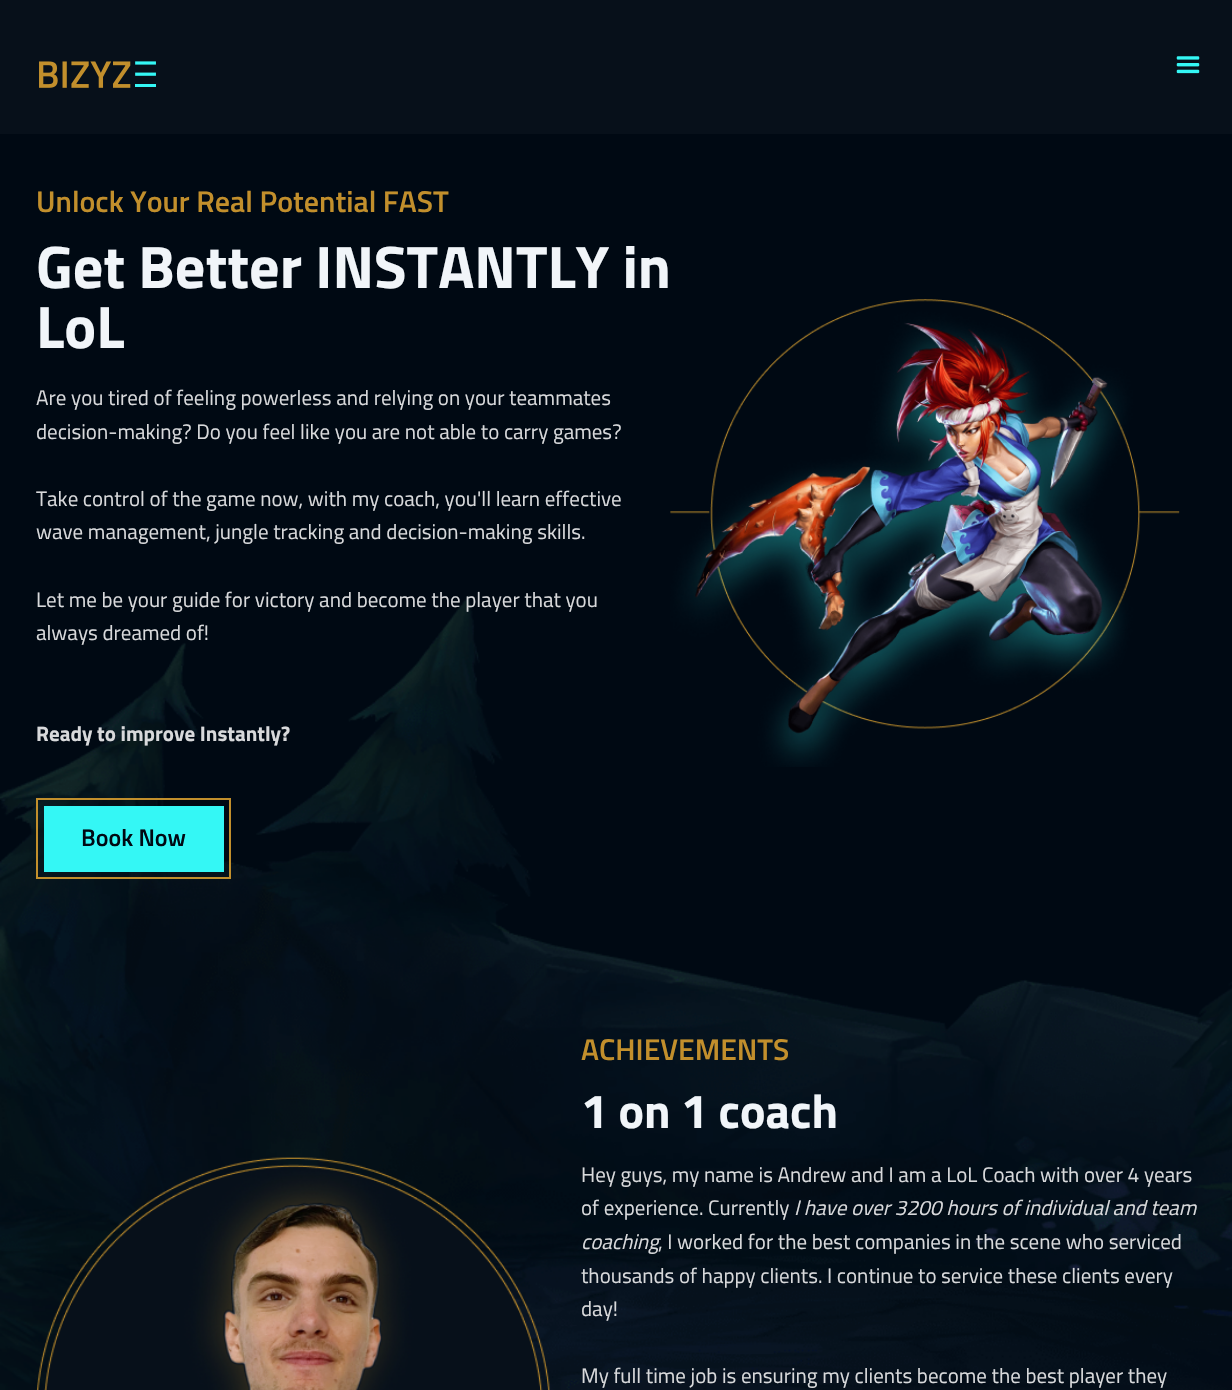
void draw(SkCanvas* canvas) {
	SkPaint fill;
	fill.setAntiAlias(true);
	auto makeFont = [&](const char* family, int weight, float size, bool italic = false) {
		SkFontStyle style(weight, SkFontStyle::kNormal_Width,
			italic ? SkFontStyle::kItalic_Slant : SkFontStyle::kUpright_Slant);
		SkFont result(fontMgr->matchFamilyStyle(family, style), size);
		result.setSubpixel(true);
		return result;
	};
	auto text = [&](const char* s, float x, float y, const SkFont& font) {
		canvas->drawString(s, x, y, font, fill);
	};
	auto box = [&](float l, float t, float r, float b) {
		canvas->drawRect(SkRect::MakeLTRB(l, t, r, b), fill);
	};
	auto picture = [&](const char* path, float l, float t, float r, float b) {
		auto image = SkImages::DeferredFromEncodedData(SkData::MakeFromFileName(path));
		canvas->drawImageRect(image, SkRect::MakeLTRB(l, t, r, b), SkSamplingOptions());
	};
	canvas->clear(0xFF000913);
	fill.setColor(0xFF07101A);
	box(0, 0, 1232, 134);
	picture("image0.png", 39, 61, 156, 88);
	picture("image1.png", 1176, 56, 1200, 74);
	picture("image2.png", 0, 595, 1232, 1390);
	fill.setStyle(SkPaint::kStroke_Style);
	fill.setStrokeWidth(2);
	fill.setColor(0xFFC28F2C);
	canvas->drawRect(SkRect::MakeLTRB(37, 799, 230, 878), fill);
	fill.setStyle(SkPaint::kFill_Style);
	fill.setColor(0xFF34F7F5);
	box(44, 806, 224, 872);
	picture("image3.png", 670, 299, 1180, 767);
	picture("image4.png", 36, 1157, 550, 1390);
	auto font1 = makeFont("Titillium Web", 600, 30);
	fill.setColor(0xFFC28F2C);
	text("Unlock Your Real Potential FAST", 36, 212, font1);
	auto font2 = makeFont("Titillium Web", 700, 60);
	fill.setColor(0xFFF1F5F9);
	text("Get Better INSTANTLY in", 36, 288, font2);
	text("LoL", 36, 348, font2);
	auto font3 = makeFont("Titillium Web", 400, 21);
	fill.setColor(0xFFD8D9DB);
	text("Are you tired of feeling powerless and relying on your teammates", 36, 405, font3);
	text("decision-making? Do you feel like you are not able to carry games?", 36, 439, font3);
	text("Take control of the game now, with my coach, you'll learn effective", 36, 506, font3);
	text("wave management, jungle tracking and decision-making skills.", 36, 539, font3);
	text("Let me be your guide for victory and become the player that you", 36, 607, font3);
	text("always dreamed of!", 36, 640, font3);
	auto font4 = makeFont("Titillium Web", 700, 21);
	text("Ready to improve Instantly?", 36, 741, font4);
	auto font5 = makeFont("Titillium Web", 600, 24);
	fill.setColor(0xFF000913);
	text("Book Now", 81, 846, font5);
	fill.setColor(0xFFC28F2C);
	text("ACHIEVEMENTS", 581, 1060, font1);
	auto font6 = makeFont("Titillium Web", 700, 48);
	fill.setColor(0xFFF1F5F9);
	text("1 on 1 coach", 581, 1128, font6);
	fill.setColor(0xFFD8D9DB);
	text("Hey guys, my name is Andrew and I am a LoL Coach with over 4 years", 581, 1182, font3);
	text("of experience. Currently", 581, 1215, font3);
	auto font7 = makeFont("Titillium Web", 400, 21, true);
	text("I have over 3200 hours of individual and team", 794, 1215, font7);
	text("coaching", 581, 1249, font7);
	text(", I worked for the best companies in the scene who serviced", 658, 1249, font3);
	text("thousands of happy clients. I continue to service these clients every", 581, 1283, font3);
	text("day!", 581, 1316, font3);
	text("My full time job is ensuring my clients become the best player they", 581, 1383, font3);
}
